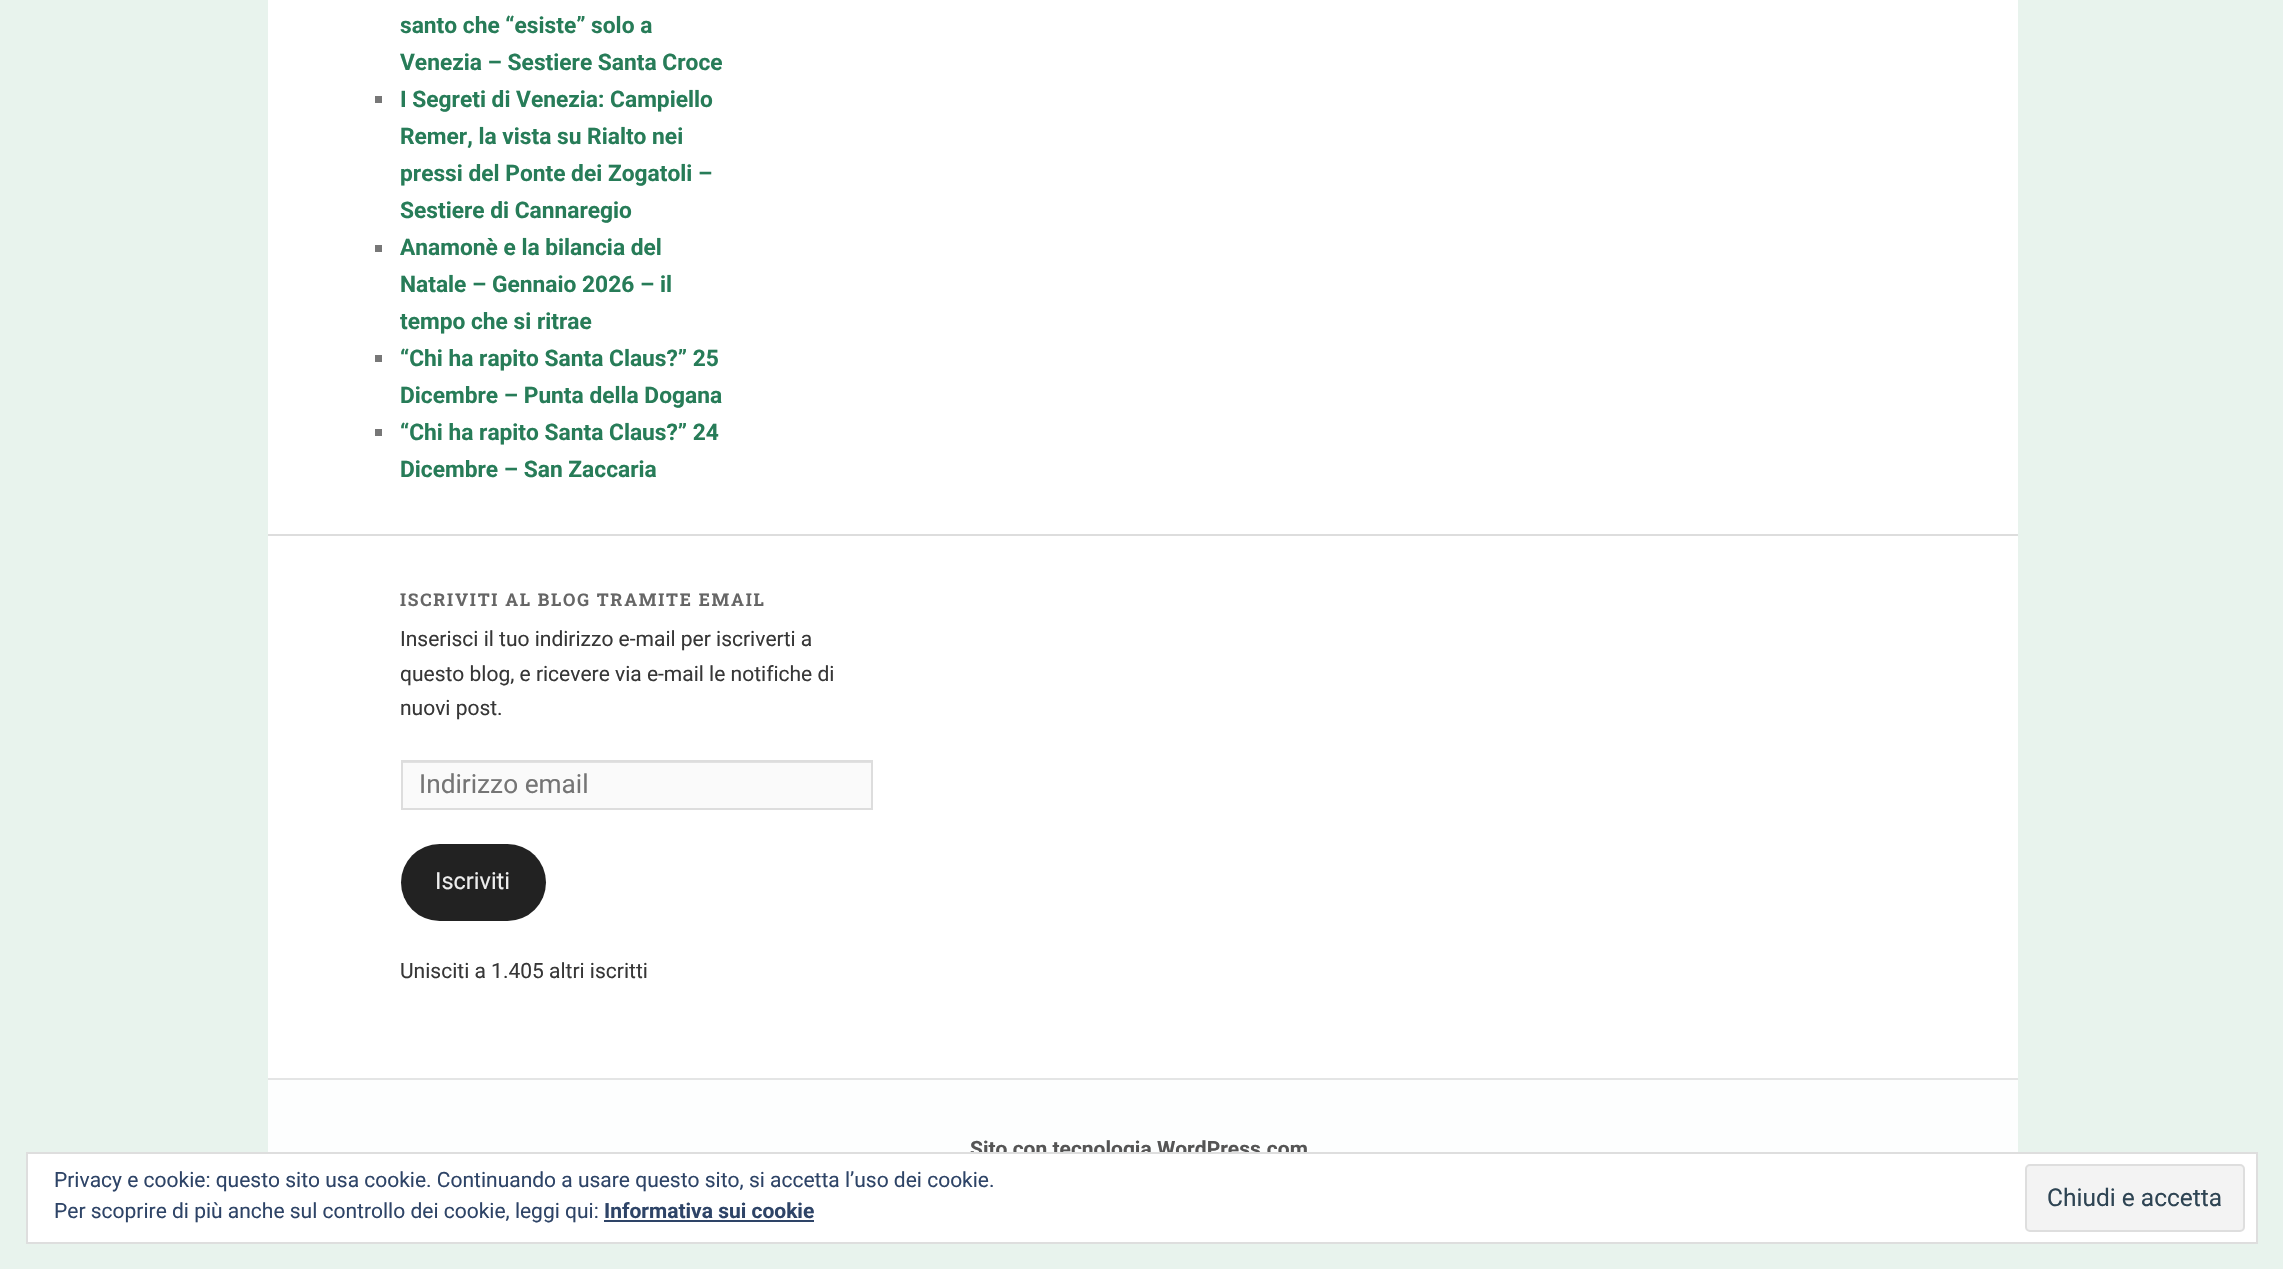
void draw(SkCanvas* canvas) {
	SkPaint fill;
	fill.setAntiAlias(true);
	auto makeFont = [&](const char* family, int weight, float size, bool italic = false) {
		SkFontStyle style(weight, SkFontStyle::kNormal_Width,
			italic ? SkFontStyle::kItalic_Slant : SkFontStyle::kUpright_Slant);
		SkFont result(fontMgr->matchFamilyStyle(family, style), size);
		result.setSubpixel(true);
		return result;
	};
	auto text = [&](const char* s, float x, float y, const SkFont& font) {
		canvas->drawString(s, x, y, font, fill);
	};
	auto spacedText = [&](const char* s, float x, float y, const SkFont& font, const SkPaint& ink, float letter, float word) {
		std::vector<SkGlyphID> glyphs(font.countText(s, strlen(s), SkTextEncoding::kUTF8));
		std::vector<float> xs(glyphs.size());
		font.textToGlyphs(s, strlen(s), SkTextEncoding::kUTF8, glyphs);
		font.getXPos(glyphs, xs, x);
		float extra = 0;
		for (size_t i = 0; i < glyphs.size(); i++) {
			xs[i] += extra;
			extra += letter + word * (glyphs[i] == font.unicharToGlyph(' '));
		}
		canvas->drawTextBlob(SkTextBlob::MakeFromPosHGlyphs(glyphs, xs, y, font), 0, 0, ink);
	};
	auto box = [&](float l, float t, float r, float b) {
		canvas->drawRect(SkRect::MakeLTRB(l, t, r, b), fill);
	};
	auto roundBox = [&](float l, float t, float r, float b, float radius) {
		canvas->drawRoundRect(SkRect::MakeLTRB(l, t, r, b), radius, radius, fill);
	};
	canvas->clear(0xFFE8F3ED);
	fill.setColor(0xFFFFFFFF);
	box(268, 0, 2018, 1078);
	fill.setColor(0xFF777777);
	box(375, 96, 382, 103);
	box(375, 245, 382, 252);
	box(375, 355, 382, 362);
	box(375, 429, 382, 436);
	fill.setColor(0xFFDDDDDD);
	box(268, 534, 2018, 536);
	fill.setColor(0xFFFAFAFA);
	box(403, 763, 871, 808);
	fill.setColor(0xFFE1E1E1);
	box(403, 762, 872, 763);
	fill.setStyle(SkPaint::kStroke_Style);
	fill.setStrokeWidth(2);
	fill.setColor(0xFFDDDDDD);
	canvas->drawRect(SkRect::MakeLTRB(402, 761, 872, 809), fill);
	fill.setStyle(SkPaint::kFill_Style);
	fill.setColor(0xFF222222);
	roundBox(401, 844, 546, 921, 38.5f);
	fill.setColor(0xFFFDFEFE);
	box(268, 1080, 2018, 1152);
	fill.setColor(0xFFE4E5E5);
	box(268, 1078, 2018, 1080);
	auto font1 = makeFont("Roboto", 700, 22.75f);
	fill.setColor(0xFF277C58);
	text("santo che “esiste” solo a", 400, 33, font1);
	text("Venezia – Sestiere Santa Croce", 400, 70, font1);
	text("I Segreti di Venezia: Campiello", 400, 107, font1);
	text("Remer, la vista su Rialto nei", 400, 144, font1);
	text("pressi del Ponte dei Zogatoli –", 400, 181, font1);
	text("Sestiere di Cannaregio", 400, 218, font1);
	text("Anamonè e la bilancia del", 400, 255, font1);
	text("Natale – Gennaio 2026 – il", 400, 292, font1);
	text("tempo che si ritrae", 400, 329, font1);
	text("“Chi ha rapito Santa Claus?” 25", 400, 366, font1);
	text("Dicembre – Punta della Dogana", 400, 403, font1);
	text("“Chi ha rapito Santa Claus?” 24", 400, 440, font1);
	text("Dicembre – San Zaccaria", 400, 477, font1);
	auto font2 = makeFont("Roboto Slab", 700, 17.5f);
	fill.setColor(0xFF666666);
	spacedText("ISCRIVITI AL BLOG TRAMITE EMAIL", 400, 606, font2, fill, 1.75f, 0);
	auto font3 = makeFont("Roboto", 400, 21);
	fill.setColor(0xFF373737);
	text("Inserisci il tuo indirizzo e-mail per iscriverti a", 400, 646, font3);
	text("questo blog, e ricevere via e-mail le notifiche di", 400, 681, font3);
	text("nuovi post.", 400, 715, font3);
	auto font4 = makeFont("Roboto", 400, 26.25f);
	fill.setColor(0xFF757575);
	text("Indirizzo email", 419, 793, font4);
	auto font5 = makeFont("Roboto", 400, 23.5f);
	fill.setColor(0xFFEEEEEE);
	text("Iscriviti", 435, 889, font5);
	fill.setColor(0xFF373737);
	text("Unisciti a 1.405 altri iscritti", 400, 978, font3);
	auto font6 = makeFont("Roboto", 700, 21);
	fill.setColor(0xFF555555);
	text("Sito con tecnologia WordPress.com", 970, 1156, font6);
	fill.setColor(0xFFFFFFFF);
	canvas->drawRect(SkRect::MakeLTRB(27, 1153, 2257, 1243), fill);
	fill.setStyle(SkPaint::kStroke_Style);
	fill.setColor(0xFFDEDEDE);
	canvas->drawRect(SkRect::MakeLTRB(27, 1153, 2257, 1243), fill);
	fill.setStyle(SkPaint::kFill_Style);
	fill.setColor(0xFF2E4467);
	text("Privacy e cookie: questo sito usa cookie. Continuando a usare questo sito, si accetta l’uso dei cookie.", 54, 1187, font3);
	fill.setColor(0xFFF3F3F3);
	canvas->drawRoundRect(SkRect::MakeLTRB(2026, 1165, 2244, 1231), 4, 4, fill);
	fill.setStyle(SkPaint::kStroke_Style);
	fill.setColor(0xFFDEDEDE);
	canvas->drawRoundRect(SkRect::MakeLTRB(2026, 1165, 2244, 1231), 4, 4, fill);
	auto font7 = makeFont("Roboto", 400, 24.5f);
	fill.setStyle(SkPaint::kFill_Style);
	fill.setColor(0xFF2E4453);
	text("Chiudi e accetta", 2047, 1206, font7);
	fill.setColor(0xFF2E4467);
	text("Per scoprire di più anche sul controllo dei cookie, leggi qui:", 54, 1218, font3);
	text("Informativa sui cookie", 604, 1218, font6);
	box(604, 1220, 814, 1222);
}
